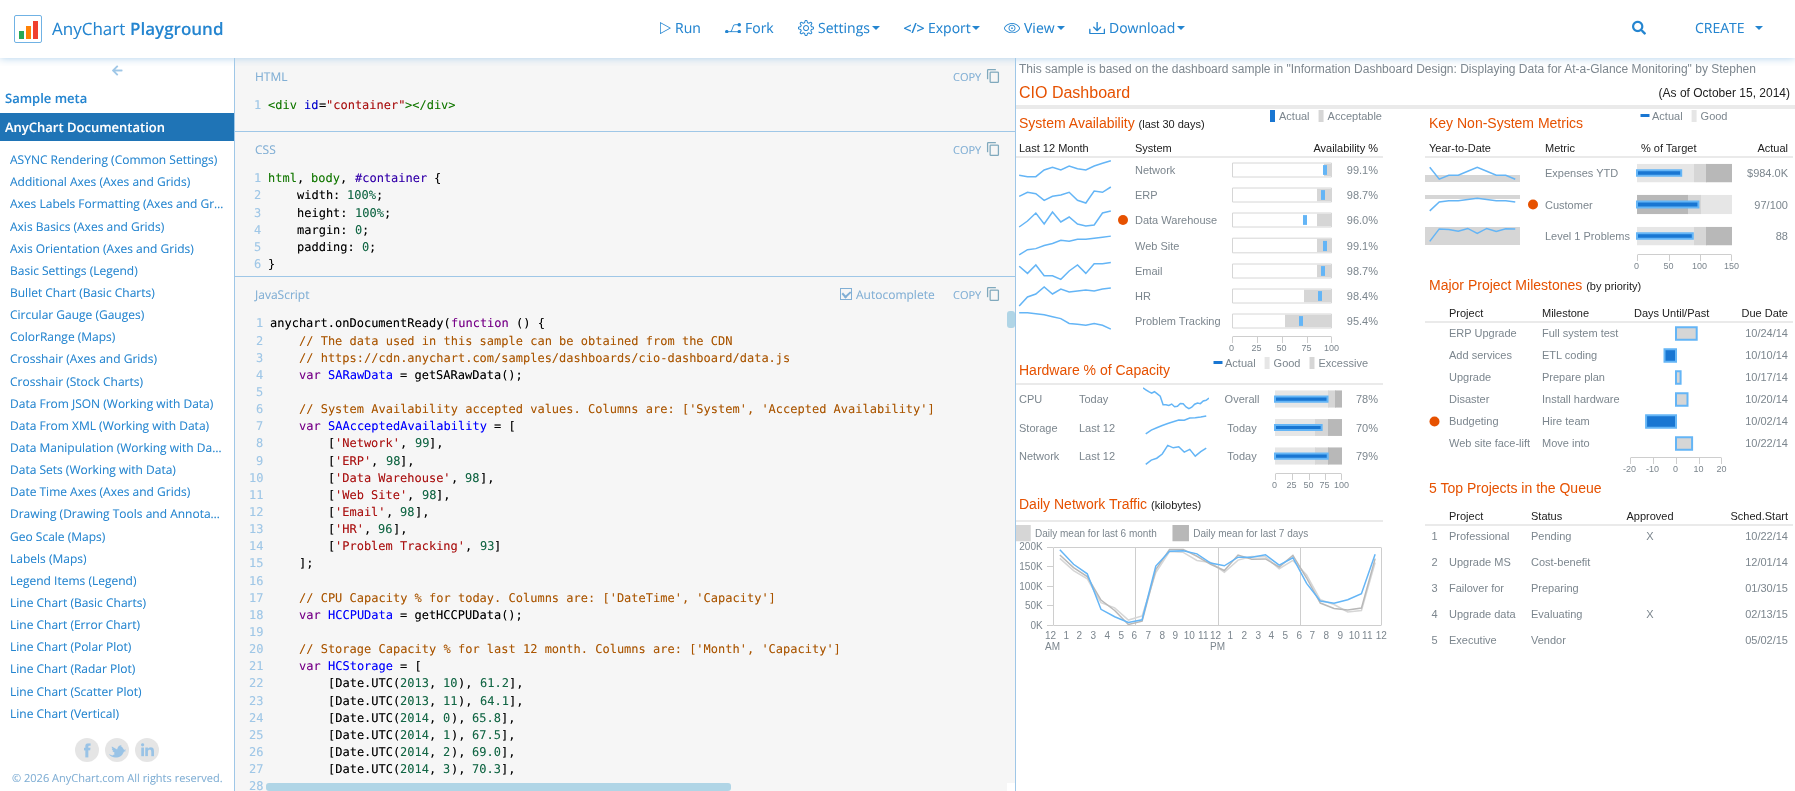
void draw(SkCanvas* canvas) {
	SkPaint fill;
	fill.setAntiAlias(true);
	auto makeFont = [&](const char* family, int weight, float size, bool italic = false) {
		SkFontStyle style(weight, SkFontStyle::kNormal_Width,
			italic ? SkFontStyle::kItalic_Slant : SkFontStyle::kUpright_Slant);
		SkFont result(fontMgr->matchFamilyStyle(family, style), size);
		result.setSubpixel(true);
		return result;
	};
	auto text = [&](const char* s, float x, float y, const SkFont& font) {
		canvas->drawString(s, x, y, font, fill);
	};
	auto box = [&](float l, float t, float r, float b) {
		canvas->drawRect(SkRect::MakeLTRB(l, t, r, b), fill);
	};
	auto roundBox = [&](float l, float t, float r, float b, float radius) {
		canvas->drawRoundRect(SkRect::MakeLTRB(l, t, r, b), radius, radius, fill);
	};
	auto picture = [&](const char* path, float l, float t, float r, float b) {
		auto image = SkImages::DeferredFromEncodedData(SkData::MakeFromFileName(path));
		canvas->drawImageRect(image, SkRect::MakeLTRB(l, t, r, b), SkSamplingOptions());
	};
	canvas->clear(0xFFFFFFFF);
	fill.setColor(0xFF9FC7E7);
	box(234, 58, 235, 791);
	picture("image7.png", 112, 65, 123, 76);
	fill.setColor(0xFFF6F6F6);
	box(235, 58, 1015, 131);
	picture("image11.png", 986, 69, 1000, 83);
	fill.setColor(0xFF9FC7E7);
	box(1015, 58, 1016, 791);
	picture("image12.png", 1016, 64, 1795, 650);
	canvas->save();
	canvas->clipRect(SkRect::MakeLTRB(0, 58, 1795, 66));
	fill.setColor(0xFFACD0EC);
	fill.setMaskFilter(SkMaskFilter::MakeBlur(kNormal_SkBlurStyle, 4));
	canvas->drawRect(SkRect::MakeLTRB(0, 0, 1795, 58), fill);
	fill.setMaskFilter(nullptr);
	canvas->restore();
	fill.setStyle(SkPaint::kStroke_Style);
	fill.setStrokeWidth(1);
	fill.setColor(0xFF70B2E4);
	canvas->drawRoundRect(SkRect::MakeLTRB(14.5f, 15.5f, 41.5f, 42.5f), 1.5f, 1.5f, fill);
	fill.setStyle(SkPaint::kFill_Style);
	fill.setColor(0xFF26A957);
	box(19, 31, 24, 39);
	fill.setColor(0xFFFF8207);
	box(26, 26, 31, 39);
	fill.setColor(0xFFF0402E);
	box(33, 21, 38, 39);
	picture("image0.png", 660, 22, 671, 34);
	picture("image1.png", 725, 23, 741, 33);
	picture("image2.png", 798, 20, 814, 36);
	fill.setColor(0xFF2485D0);
	canvas->drawPath(SkPathBuilder().moveTo(872, 26).lineTo(880, 26).lineTo(876, 30).close().detach(), fill);
	picture("image3.png", 904, 23, 924, 33);
	canvas->drawPath(SkPathBuilder().moveTo(972, 26).lineTo(980, 26).lineTo(976, 30).close().detach(), fill);
	picture("image4.png", 1004, 23, 1020, 33);
	canvas->drawPath(SkPathBuilder().moveTo(1057, 26).lineTo(1065, 26).lineTo(1061, 30).close().detach(), fill);
	picture("image5.png", 1089, 22, 1105, 34);
	canvas->drawPath(SkPathBuilder().moveTo(1177, 26).lineTo(1185, 26).lineTo(1181, 30).close().detach(), fill);
	picture("image6.png", 1632, 20, 1646, 35);
	canvas->drawPath(SkPathBuilder().moveTo(1755, 26).lineTo(1763, 26).lineTo(1759, 30).close().detach(), fill);
	fill.setColor(0xFF1F74B6);
	box(0, 113, 234, 141);
	fill.setColor(0xFFE5E5E5);
	canvas->drawCircle(87, 750, 12, fill);
	picture("image8.png", 84, 743, 91, 758);
	canvas->drawCircle(117, 750, 12, fill);
	picture("image9.png", 109, 745, 126, 758);
	canvas->drawCircle(147, 750, 12, fill);
	picture("image10.png", 141, 743, 154, 757);
	fill.setColor(0xFF9FC7E7);
	box(235, 131, 1015, 132);
	fill.setColor(0xFFF6F6F6);
	box(235, 132, 1015, 276);
	picture("image11.png", 986, 142, 1000, 156);
	fill.setColor(0xFF9FC7E7);
	box(235, 276, 1015, 277);
	fill.setColor(0xFFF6F6F6);
	box(235, 277, 1015, 791);
	fill.setStyle(SkPaint::kStroke_Style);
	fill.setColor(0xFF81AFD5);
	canvas->drawRect(SkRect::MakeLTRB(840.5f, 288.5f, 851.5f, 299.5f), fill);
	fill.setStyle(SkPaint::kFill_Style);
	canvas->drawPath(SkPathBuilder().moveTo(844, 297).lineTo(850, 291.5f).lineTo(851.5f, 292.5f).lineTo(845.5f, 298.5f).close().detach(), fill);
	canvas->drawPath(SkPathBuilder().moveTo(841.5f, 294).lineTo(843, 292.5f).lineTo(847, 297).lineTo(845.5f, 298.5f).close().detach(), fill);
	picture("image11.png", 986, 287, 1000, 301);
	fill.setColor(0xFFB0D5E6);
	roundBox(1007, 311, 1015, 328, 3);
	roundBox(266, 783, 731, 791, 3);
	fill.setColor(0xFFFFFFFF);
	box(1007, 783, 1015, 791);
	auto font1 = makeFont("Open Sans", 400, 17);
	fill.setColor(0xFF2485D0);
	text("AnyChart", 52, 35, font1);
	auto font2 = makeFont("Open Sans", 600, 17);
	text("Playground", 130, 35, font2);
	auto font3 = makeFont("Open Sans", 400, 14);
	text("Run", 675, 33, font3);
	text("Fork", 745, 33, font3);
	text("Settings", 818, 33, font3);
	text("Export", 928, 33, font3);
	text("View", 1024, 33, font3);
	text("Download", 1109, 33, font3);
	text("CREATE", 1695, 33, font3);
	auto font4 = makeFont("Open Sans", 600, 13);
	text("Sample meta", 5, 103, font4);
	fill.setColor(0xFFFFFFFF);
	text("AnyChart Documentation", 5, 132, font4);
	auto font5 = makeFont("Open Sans", 400, 12);
	fill.setColor(0xFF2485D0);
	text("ASYNC Rendering (Common Settings)", 10, 164, font5);
	text("Additional Axes (Axes and Grids)", 10, 186, font5);
	text("Axes Labels Formatting (Axes and Gr…", 10, 208, font5);
	text("Axis Basics (Axes and Grids)", 10, 231, font5);
	text("Axis Orientation (Axes and Grids)", 10, 253, font5);
	text("Basic Settings (Legend)", 10, 275, font5);
	text("Bullet Chart (Basic Charts)", 10, 297, font5);
	text("Circular Gauge (Gauges)", 10, 319, font5);
	text("ColorRange (Maps)", 10, 341, font5);
	text("Crosshair (Axes and Grids)", 10, 363, font5);
	text("Crosshair (Stock Charts)", 10, 386, font5);
	text("Data From JSON (Working with Data)", 10, 408, font5);
	text("Data From XML (Working with Data)", 10, 430, font5);
	text("Data Manipulation (Working with Da…", 10, 452, font5);
	text("Data Sets (Working with Data)", 10, 474, font5);
	text("Date Time Axes (Axes and Grids)", 10, 496, font5);
	text("Drawing (Drawing Tools and Annota…", 10, 518, font5);
	text("Geo Scale (Maps)", 10, 541, font5);
	text("Labels (Maps)", 10, 563, font5);
	text("Legend Items (Legend)", 10, 585, font5);
	text("Line Chart (Basic Charts)", 10, 607, font5);
	text("Line Chart (Error Chart)", 10, 629, font5);
	text("Line Chart (Polar Plot)", 10, 651, font5);
	text("Line Chart (Radar Plot)", 10, 673, font5);
	text("Line Chart (Scatter Plot)", 10, 696, font5);
	text("Line Chart (Vertical)", 10, 718, font5);
	auto font6 = makeFont("Open Sans", 400, 11);
	fill.setColor(0xFF81AFD5);
	text("© 2026 AnyChart.com All rights reserved.", 12, 782, font6);
	text("HTML", 255, 81, font5);
	text("COPY", 953, 81, font6);
	auto font7 = makeFont("DejaVu Sans Mono", 400, 12);
	fill.setColor(0xFF9FC7E7);
	text("1", 254, 109, font7);
	fill.setColor(0xFF117700);
	text("<div", 268, 109, font7);
	fill.setColor(0xFF0000CC);
	text("id", 304, 109, font7);
	fill.setColor(0xFF000000);
	text("=", 319, 109, font7);
	fill.setColor(0xFFAA1111);
	text("\"container\"", 326, 109, font7);
	fill.setColor(0xFF117700);
	text("></div>", 405, 109, font7);
	fill.setColor(0xFF81AFD5);
	text("CSS", 255, 154, font5);
	text("COPY", 953, 154, font6);
	fill.setColor(0xFF9FC7E7);
	text("1", 254, 182, font7);
	fill.setColor(0xFF117700);
	text("html", 268, 182, font7);
	fill.setColor(0xFF000000);
	text(",", 297, 182, font7);
	fill.setColor(0xFF117700);
	text("body", 311, 182, font7);
	fill.setColor(0xFF000000);
	text(",", 340, 182, font7);
	fill.setColor(0xFF3300AA);
	text("#container", 355, 182, font7);
	fill.setColor(0xFF000000);
	text("{", 434, 182, font7);
	fill.setColor(0xFF9FC7E7);
	text("2", 254, 199, font7);
	fill.setColor(0xFF000000);
	text("width:", 297, 199, font7);
	fill.setColor(0xFF116644);
	text("100%", 347, 199, font7);
	fill.setColor(0xFF000000);
	text(";", 376, 199, font7);
	fill.setColor(0xFF9FC7E7);
	text("3", 254, 217, font7);
	fill.setColor(0xFF000000);
	text("height:", 297, 217, font7);
	fill.setColor(0xFF116644);
	text("100%", 355, 217, font7);
	fill.setColor(0xFF000000);
	text(";", 384, 217, font7);
	fill.setColor(0xFF9FC7E7);
	text("4", 254, 234, font7);
	fill.setColor(0xFF000000);
	text("margin:", 297, 234, font7);
	fill.setColor(0xFF116644);
	text("0", 355, 234, font7);
	fill.setColor(0xFF000000);
	text(";", 362, 234, font7);
	fill.setColor(0xFF9FC7E7);
	text("5", 254, 251, font7);
	fill.setColor(0xFF000000);
	text("padding:", 297, 251, font7);
	fill.setColor(0xFF116644);
	text("0", 362, 251, font7);
	fill.setColor(0xFF000000);
	text(";", 369, 251, font7);
	fill.setColor(0xFF9FC7E7);
	text("6", 254, 268, font7);
	fill.setColor(0xFF000000);
	text("}", 268, 268, font7);
	fill.setColor(0xFF81AFD5);
	text("JavaScript", 255, 299, font5);
	text("Autocomplete", 856, 299, font5);
	text("COPY", 953, 299, font6);
	fill.setColor(0xFF9FC7E7);
	text("1", 256, 327, font7);
	fill.setColor(0xFF000000);
	text("anychart.onDocumentReady(", 270, 327, font7);
	fill.setColor(0xFF770088);
	text("function", 451, 327, font7);
	fill.setColor(0xFF000000);
	text("() {", 516, 327, font7);
	fill.setColor(0xFF9FC7E7);
	text("2", 256, 345, font7);
	fill.setColor(0xFFAA5500);
	text("// The data used in this sample can be obtained from the CDN", 299, 345, font7);
	fill.setColor(0xFF9FC7E7);
	text("3", 256, 362, font7);
	fill.setColor(0xFFAA5500);
	text("// https://cdn.anychart.com/samples/dashboards/cio-dashboard/data.js", 299, 362, font7);
	fill.setColor(0xFF9FC7E7);
	text("4", 256, 379, font7);
	fill.setColor(0xFF770088);
	text("var", 299, 379, font7);
	fill.setColor(0xFF0000FF);
	text("SARawData", 328, 379, font7);
	fill.setColor(0xFF000000);
	text("= getSARawData();", 400, 379, font7);
	fill.setColor(0xFF9FC7E7);
	text("5", 256, 396, font7);
	text("6", 256, 413, font7);
	fill.setColor(0xFFAA5500);
	text("// System Availability accepted values. Columns are: ['System', 'Accepted Availability']", 299, 413, font7);
	fill.setColor(0xFF9FC7E7);
	text("7", 256, 430, font7);
	fill.setColor(0xFF770088);
	text("var", 299, 430, font7);
	fill.setColor(0xFF0000FF);
	text("SAAcceptedAvailability", 328, 430, font7);
	fill.setColor(0xFF000000);
	text("= [", 494, 430, font7);
	fill.setColor(0xFF9FC7E7);
	text("8", 256, 447, font7);
	fill.setColor(0xFF000000);
	text("[", 328, 447, font7);
	fill.setColor(0xFFAA1111);
	text("'Network'", 335, 447, font7);
	fill.setColor(0xFF000000);
	text(",", 400, 447, font7);
	fill.setColor(0xFF116644);
	text("99", 415, 447, font7);
	fill.setColor(0xFF000000);
	text("],", 429, 447, font7);
	fill.setColor(0xFF9FC7E7);
	text("9", 256, 465, font7);
	fill.setColor(0xFF000000);
	text("[", 328, 465, font7);
	fill.setColor(0xFFAA1111);
	text("'ERP'", 335, 465, font7);
	fill.setColor(0xFF000000);
	text(",", 371, 465, font7);
	fill.setColor(0xFF116644);
	text("98", 386, 465, font7);
	fill.setColor(0xFF000000);
	text("],", 400, 465, font7);
	fill.setColor(0xFF9FC7E7);
	text("10", 249, 482, font7);
	fill.setColor(0xFF000000);
	text("[", 328, 482, font7);
	fill.setColor(0xFFAA1111);
	text("'Data Warehouse'", 335, 482, font7);
	fill.setColor(0xFF000000);
	text(",", 451, 482, font7);
	fill.setColor(0xFF116644);
	text("98", 465, 482, font7);
	fill.setColor(0xFF000000);
	text("],", 480, 482, font7);
	fill.setColor(0xFF9FC7E7);
	text("11", 249, 499, font7);
	fill.setColor(0xFF000000);
	text("[", 328, 499, font7);
	fill.setColor(0xFFAA1111);
	text("'Web Site'", 335, 499, font7);
	fill.setColor(0xFF000000);
	text(",", 407, 499, font7);
	fill.setColor(0xFF116644);
	text("98", 422, 499, font7);
	fill.setColor(0xFF000000);
	text("],", 436, 499, font7);
	fill.setColor(0xFF9FC7E7);
	text("12", 249, 516, font7);
	fill.setColor(0xFF000000);
	text("[", 328, 516, font7);
	fill.setColor(0xFFAA1111);
	text("'Email'", 335, 516, font7);
	fill.setColor(0xFF000000);
	text(",", 386, 516, font7);
	fill.setColor(0xFF116644);
	text("98", 400, 516, font7);
	fill.setColor(0xFF000000);
	text("],", 415, 516, font7);
	fill.setColor(0xFF9FC7E7);
	text("13", 249, 533, font7);
	fill.setColor(0xFF000000);
	text("[", 328, 533, font7);
	fill.setColor(0xFFAA1111);
	text("'HR'", 335, 533, font7);
	fill.setColor(0xFF000000);
	text(",", 364, 533, font7);
	fill.setColor(0xFF116644);
	text("96", 378, 533, font7);
	fill.setColor(0xFF000000);
	text("],", 393, 533, font7);
	fill.setColor(0xFF9FC7E7);
	text("14", 249, 550, font7);
	fill.setColor(0xFF000000);
	text("[", 328, 550, font7);
	fill.setColor(0xFFAA1111);
	text("'Problem Tracking'", 335, 550, font7);
	fill.setColor(0xFF000000);
	text(",", 465, 550, font7);
	fill.setColor(0xFF116644);
	text("93", 480, 550, font7);
	fill.setColor(0xFF000000);
	text("]", 494, 550, font7);
	fill.setColor(0xFF9FC7E7);
	text("15", 249, 567, font7);
	fill.setColor(0xFF000000);
	text("];", 299, 567, font7);
	fill.setColor(0xFF9FC7E7);
	text("16", 249, 585, font7);
	text("17", 249, 602, font7);
	fill.setColor(0xFFAA5500);
	text("// CPU Capacity % for today. Columns are: ['DateTime', 'Capacity']", 299, 602, font7);
	fill.setColor(0xFF9FC7E7);
	text("18", 249, 619, font7);
	fill.setColor(0xFF770088);
	text("var", 299, 619, font7);
	fill.setColor(0xFF0000FF);
	text("HCCPUData", 328, 619, font7);
	fill.setColor(0xFF000000);
	text("= getHCCPUData();", 400, 619, font7);
	fill.setColor(0xFF9FC7E7);
	text("19", 249, 636, font7);
	text("20", 249, 653, font7);
	fill.setColor(0xFFAA5500);
	text("// Storage Capacity % for last 12 month. Columns are: ['Month', 'Capacity']", 299, 653, font7);
	fill.setColor(0xFF9FC7E7);
	text("21", 249, 670, font7);
	fill.setColor(0xFF770088);
	text("var", 299, 670, font7);
	fill.setColor(0xFF0000FF);
	text("HCStorage", 328, 670, font7);
	fill.setColor(0xFF000000);
	text("= [", 400, 670, font7);
	fill.setColor(0xFF9FC7E7);
	text("22", 249, 687, font7);
	fill.setColor(0xFF000000);
	text("[Date.UTC(", 328, 687, font7);
	fill.setColor(0xFF116644);
	text("2013", 400, 687, font7);
	fill.setColor(0xFF000000);
	text(",", 429, 687, font7);
	fill.setColor(0xFF116644);
	text("10", 443, 687, font7);
	fill.setColor(0xFF000000);
	text("),", 458, 687, font7);
	fill.setColor(0xFF116644);
	text("61.2", 480, 687, font7);
	fill.setColor(0xFF000000);
	text("],", 509, 687, font7);
	fill.setColor(0xFF9FC7E7);
	text("23", 249, 705, font7);
	fill.setColor(0xFF000000);
	text("[Date.UTC(", 328, 705, font7);
	fill.setColor(0xFF116644);
	text("2013", 400, 705, font7);
	fill.setColor(0xFF000000);
	text(",", 429, 705, font7);
	fill.setColor(0xFF116644);
	text("11", 443, 705, font7);
	fill.setColor(0xFF000000);
	text("),", 458, 705, font7);
	fill.setColor(0xFF116644);
	text("64.1", 480, 705, font7);
	fill.setColor(0xFF000000);
	text("],", 509, 705, font7);
	fill.setColor(0xFF9FC7E7);
	text("24", 249, 722, font7);
	fill.setColor(0xFF000000);
	text("[Date.UTC(", 328, 722, font7);
	fill.setColor(0xFF116644);
	text("2014", 400, 722, font7);
	fill.setColor(0xFF000000);
	text(",", 429, 722, font7);
	fill.setColor(0xFF116644);
	text("0", 443, 722, font7);
	fill.setColor(0xFF000000);
	text("),", 451, 722, font7);
	fill.setColor(0xFF116644);
	text("65.8", 472, 722, font7);
	fill.setColor(0xFF000000);
	text("],", 501, 722, font7);
	fill.setColor(0xFF9FC7E7);
	text("25", 249, 739, font7);
	fill.setColor(0xFF000000);
	text("[Date.UTC(", 328, 739, font7);
	fill.setColor(0xFF116644);
	text("2014", 400, 739, font7);
	fill.setColor(0xFF000000);
	text(",", 429, 739, font7);
	fill.setColor(0xFF116644);
	text("1", 443, 739, font7);
	fill.setColor(0xFF000000);
	text("),", 451, 739, font7);
	fill.setColor(0xFF116644);
	text("67.5", 472, 739, font7);
	fill.setColor(0xFF000000);
	text("],", 501, 739, font7);
	fill.setColor(0xFF9FC7E7);
	text("26", 249, 756, font7);
	fill.setColor(0xFF000000);
	text("[Date.UTC(", 328, 756, font7);
	fill.setColor(0xFF116644);
	text("2014", 400, 756, font7);
	fill.setColor(0xFF000000);
	text(",", 429, 756, font7);
	fill.setColor(0xFF116644);
	text("2", 443, 756, font7);
	fill.setColor(0xFF000000);
	text("),", 451, 756, font7);
	fill.setColor(0xFF116644);
	text("69.0", 472, 756, font7);
	fill.setColor(0xFF000000);
	text("],", 501, 756, font7);
	fill.setColor(0xFF9FC7E7);
	text("27", 249, 773, font7);
	fill.setColor(0xFF000000);
	text("[Date.UTC(", 328, 773, font7);
	fill.setColor(0xFF116644);
	text("2014", 400, 773, font7);
	fill.setColor(0xFF000000);
	text(",", 429, 773, font7);
	fill.setColor(0xFF116644);
	text("3", 443, 773, font7);
	fill.setColor(0xFF000000);
	text("),", 451, 773, font7);
	fill.setColor(0xFF116644);
	text("70.3", 472, 773, font7);
	fill.setColor(0xFF000000);
	text("],", 501, 773, font7);
	fill.setColor(0xFF9FC7E7);
	text("28", 249, 790, font7);
}
